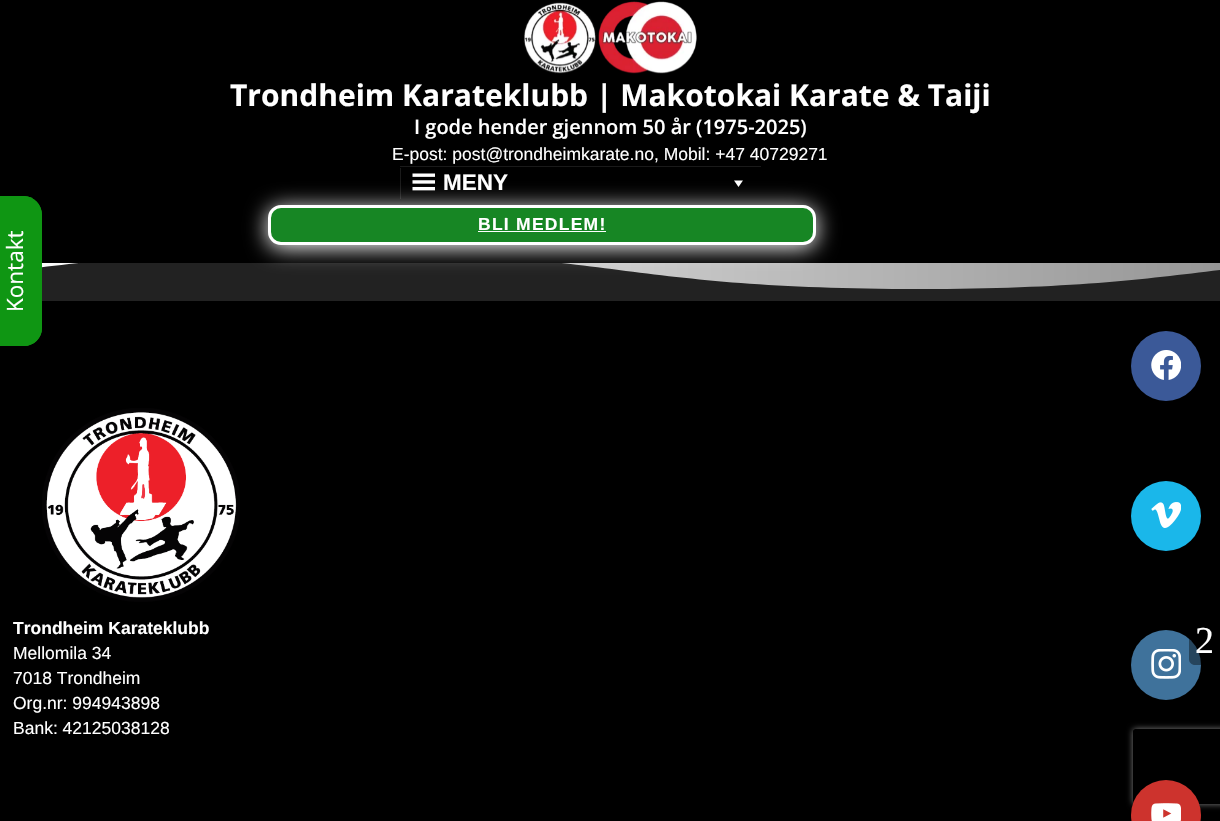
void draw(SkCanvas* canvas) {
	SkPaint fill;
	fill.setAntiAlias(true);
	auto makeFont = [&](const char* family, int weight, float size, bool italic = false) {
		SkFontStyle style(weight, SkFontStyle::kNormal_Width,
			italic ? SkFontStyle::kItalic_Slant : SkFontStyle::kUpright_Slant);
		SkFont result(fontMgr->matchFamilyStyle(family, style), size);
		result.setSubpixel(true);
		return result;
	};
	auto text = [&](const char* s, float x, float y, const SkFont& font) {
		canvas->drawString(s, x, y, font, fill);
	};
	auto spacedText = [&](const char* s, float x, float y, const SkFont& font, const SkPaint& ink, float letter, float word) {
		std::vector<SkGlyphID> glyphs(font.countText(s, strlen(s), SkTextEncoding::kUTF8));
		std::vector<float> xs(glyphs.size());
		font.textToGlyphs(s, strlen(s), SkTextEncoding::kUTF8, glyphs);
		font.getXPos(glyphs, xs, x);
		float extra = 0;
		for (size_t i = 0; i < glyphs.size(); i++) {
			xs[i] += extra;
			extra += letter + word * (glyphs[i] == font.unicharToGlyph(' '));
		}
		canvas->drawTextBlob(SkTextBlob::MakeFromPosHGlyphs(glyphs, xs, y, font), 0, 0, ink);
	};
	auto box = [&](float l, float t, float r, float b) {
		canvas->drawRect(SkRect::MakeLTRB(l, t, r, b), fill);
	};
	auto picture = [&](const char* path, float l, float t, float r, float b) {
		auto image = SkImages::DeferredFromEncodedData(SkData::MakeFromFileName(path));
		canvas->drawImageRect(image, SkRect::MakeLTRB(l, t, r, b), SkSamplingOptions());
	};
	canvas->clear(0xFF000000);
	{
		const SkColor colors[] = {0xFFFFFFFF, 0xFF969696};
		const float stops[] = {0, 1};
		const SkPoint ends[] = {{19, -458}, {1220, -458}};
		fill.setShader(SkGradientShader::MakeLinear(ends, colors, stops, 2, SkTileMode::kClamp));
		fill.setAlpha(255);
	}
	box(42, 263, 1220, 289);
	fill.setShader(nullptr);
	fill.setColor(0xFF222222);
	canvas->drawPath(SkPathBuilder().moveTo(319, 251).cubicTo(619, 251, 619, 289, 920, 289).cubicTo(1070, 289, 1145, 279, 1220, 270).lineTo(1220, 301).lineTo(19, 301).lineTo(19, 270).cubicTo(94, 261, 169, 251, 319, 251).close().detach(), fill);
	fill.setColor(0xFF000000);
	box(80, 251, 561, 263);
	picture("image0.png", 523, 1, 697, 74);
	fill.setColor(0xFF1A1A1A);
	box(400, 168, 401, 199);
	box(400, 166, 761, 167);
	picture("image1.png", 412, 173, 435, 191);
	fill.setColor(0xFFFFFFFF);
	canvas->drawPath(SkPathBuilder().moveTo(743, 180.5f).lineTo(738.5f, 187).lineTo(734, 180.5f).close().detach(), fill);
	fill.setMaskFilter(SkMaskFilter::MakeBlur(kNormal_SkBlurStyle, 11));
	canvas->drawRoundRect(SkRect::MakeLTRB(268, 208, 816, 248), 13, 13, fill);
	fill.setMaskFilter(nullptr);
	fill.setColor(0xFF178624);
	canvas->drawRoundRect(SkRect::MakeLTRB(269.5f, 206.5f, 814.5f, 243.5f), 11.5f, 11.5f, fill);
	fill.setStyle(SkPaint::kStroke_Style);
	fill.setStrokeWidth(3);
	fill.setColor(0xFFFFFFFF);
	canvas->drawRoundRect(SkRect::MakeLTRB(269.5f, 206.5f, 814.5f, 243.5f), 11.5f, 11.5f, fill);
	fill.setStyle(SkPaint::kFill_Style);
	box(478, 231, 606, 232);
	picture("image2.png", 42, 408, 240, 602);
	fill.setColor(0xFF0F9613);
	canvas->drawPath(SkPathBuilder().moveTo(0, 346).lineTo(0, 196).lineTo(24, 196).cubicTo(34, 196, 42, 205, 42, 215).lineTo(42, 328).cubicTo(42, 338, 34, 346, 24, 346).close().detach(), fill);
	canvas->drawPath(SkPathBuilder(SkPathFillType::kEvenOdd).moveTo(0, 346).lineTo(0, 196).lineTo(24, 196).cubicTo(34, 196, 42, 205, 42, 215).lineTo(42, 328).cubicTo(42, 338, 34, 346, 24, 346).close().moveTo(0, 345).lineTo(0, 198).lineTo(24, 198).cubicTo(33, 198, 41, 205, 41, 215).lineTo(41, 328).cubicTo(41, 337, 33, 345, 24, 345).close().detach(), fill);
	fill.setColor(0xFF3B5998);
	canvas->drawCircle(1166, 366, 35, fill);
	picture("image3.png", 1151, 350, 1181, 380);
	fill.setColor(0xFF1AB7EA);
	canvas->drawCircle(1166, 516, 35, fill);
	picture("image4.png", 1151, 502, 1181, 528);
	fill.setColor(0xFF3F729B);
	canvas->drawCircle(1166, 665, 35, fill);
	picture("image5.png", 1151, 649, 1181, 679);
	canvas->save();
	canvas->clipPath(SkPathBuilder(SkPathFillType::kEvenOdd).moveTo(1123, 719).lineTo(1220, 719).lineTo(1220, 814).lineTo(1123, 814).close().moveTo(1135.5f, 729).lineTo(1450.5f, 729).cubicTo(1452, 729, 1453, 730, 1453, 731.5f).lineTo(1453, 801.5f).cubicTo(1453, 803, 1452, 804, 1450.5f, 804).lineTo(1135.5f, 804).cubicTo(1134, 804, 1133, 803, 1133, 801.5f).lineTo(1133, 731.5f).cubicTo(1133, 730, 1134, 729, 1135.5f, 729).close().detach(), true);
	fill.setColor(0xFF808080);
	fill.setMaskFilter(SkMaskFilter::MakeBlur(kNormal_SkBlurStyle, 3));
	canvas->drawRoundRect(SkRect::MakeLTRB(1133, 729, 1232, 804), 2.5f, 2.5f, fill);
	fill.setMaskFilter(nullptr);
	canvas->restore();
	fill.setColor(0xFFCD332D);
	canvas->drawCircle(1166, 815, 35, fill);
	picture("image6.png", 1151, 803, 1181, 821);
	fill.setColor(0x66000000);
	canvas->drawPath(SkPathBuilder().moveTo(1195, 615).lineTo(1220, 615).lineTo(1220, 665).lineTo(1195, 665).cubicTo(1191.5f, 665, 1189, 662.5f, 1189, 659).lineTo(1189, 621).cubicTo(1189, 617.5f, 1191.5f, 615, 1195, 615).close().detach(), fill);
	auto font1 = makeFont("Open Sans", 700, 30);
	fill.setColor(0xFFFFFFFF);
	text("Trondheim Karateklubb | Makotokai Karate & Taiji", 230, 106, font1);
	auto font2 = makeFont("Open Sans", 600, 20);
	text("I gode hender gjennom 50 år (1975-2025)", 414, 134, font2);
	auto font3 = makeFont("Liberation Sans", 400, 17.5f);
	text("E-post: post@trondheimkarate.no, Mobil: +47 40729271", 392, 160, font3);
	auto font4 = makeFont("Liberation Sans", 700, 22.5f);
	text("MENY", 443, 190, font4);
	auto font5 = makeFont("Liberation Sans", 700, 17.5f);
	spacedText("BLI MEDLEM!", 478, 230, font5, fill, 1.25f, 0);
	text("Trondheim Karateklubb", 13, 634, font5);
	text("Mellomila 34", 13, 659, font3);
	text("7018 Trondheim", 13, 684, font3);
	text("Org.nr: 994943898", 13, 709, font3);
	text("Bank: 42125038128", 13, 734, font3);
	auto font6 = makeFont("Open Sans", 400, 22.5f);
	canvas->save();
	canvas->rotate(-90, 23, 312);
	text("Kontakt", 23, 312, font6);
	canvas->restore();
	auto font7 = makeFont("Liberation Serif", 400, 38);
	text("2", 1195, 653, font7);
}
